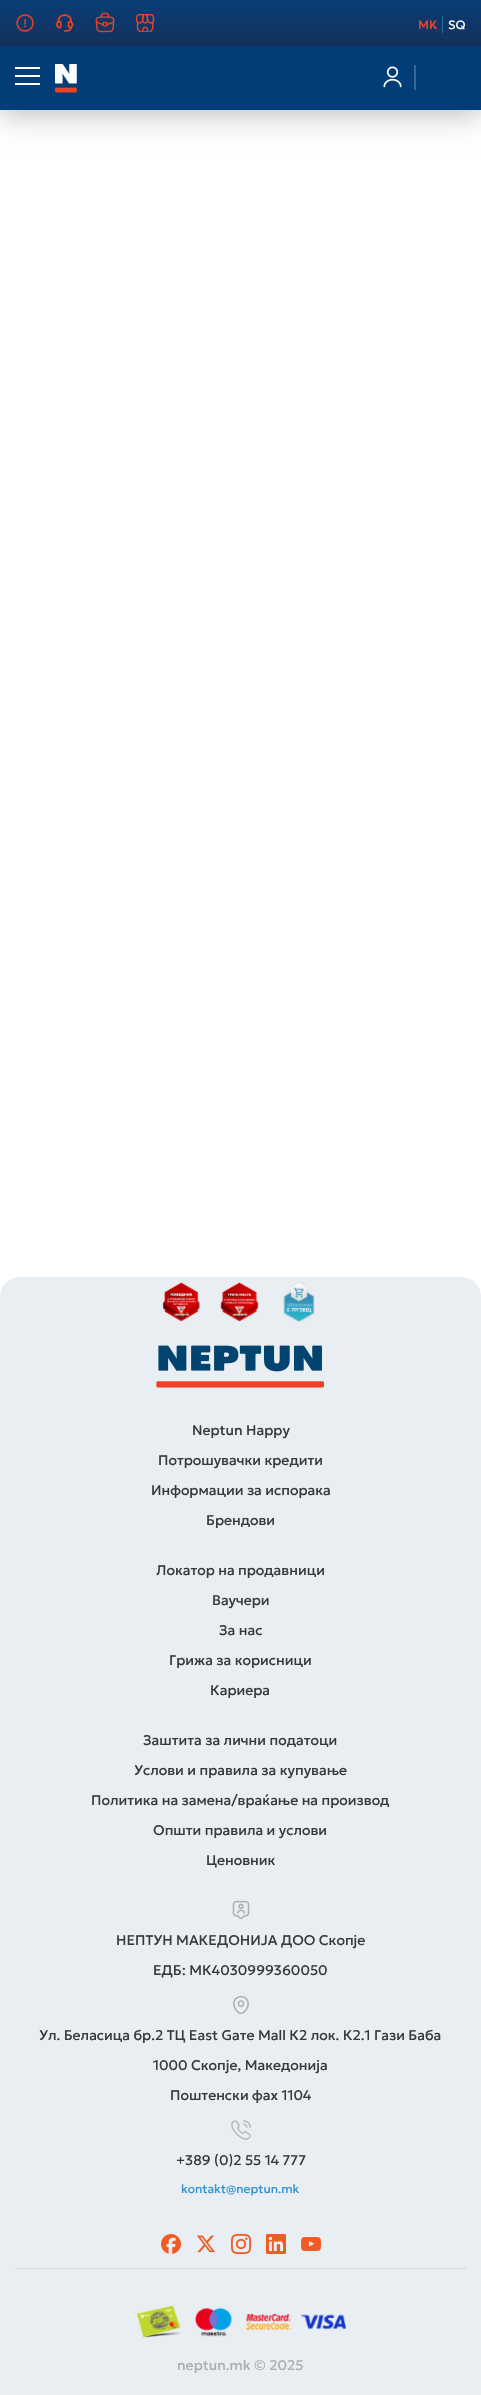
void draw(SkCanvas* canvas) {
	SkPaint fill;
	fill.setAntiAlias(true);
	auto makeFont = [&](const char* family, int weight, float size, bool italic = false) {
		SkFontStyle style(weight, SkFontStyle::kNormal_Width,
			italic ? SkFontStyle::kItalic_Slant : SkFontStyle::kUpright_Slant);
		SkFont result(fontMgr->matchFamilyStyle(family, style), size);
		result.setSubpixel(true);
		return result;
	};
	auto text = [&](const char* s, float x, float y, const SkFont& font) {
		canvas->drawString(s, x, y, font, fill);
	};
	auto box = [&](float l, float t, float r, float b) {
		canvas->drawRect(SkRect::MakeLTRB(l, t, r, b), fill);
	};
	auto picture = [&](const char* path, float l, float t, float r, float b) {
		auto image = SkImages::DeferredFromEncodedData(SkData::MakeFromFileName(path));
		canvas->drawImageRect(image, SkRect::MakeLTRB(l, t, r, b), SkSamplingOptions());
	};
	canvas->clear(0xFFFFFFFF);
	fill.setColor(0x45000000);
	fill.setMaskFilter(SkMaskFilter::MakeBlur(kNormal_SkBlurStyle, 14));
	canvas->drawRect(SkRect::MakeLTRB(0, 4, 481, 114), fill);
	fill.setMaskFilter(nullptr);
	fill.setColor(0xFF013D77);
	box(0, 46, 481, 110);
	{
		const SkColor colors[] = {0xFF093D77, 0xFF15315B};
		const float stops[] = {0, 1};
		const SkPoint ends[] = {{241, 0}, {241, 46}};
		fill.setShader(SkGradientShader::MakeLinear(ends, colors, stops, 2, SkTileMode::kClamp));
		fill.setAlpha(255);
	}
	box(0, 0, 481, 46);
	picture("image0.png", 16, 14, 34, 32);
	picture("image1.png", 56, 14, 74, 32);
	picture("image2.png", 95, 12, 115, 33);
	picture("image3.png", 135, 14, 155, 32);
	fill.setShader(nullptr);
	fill.setColor(0xFF246F9E);
	box(442, 16, 443, 33);
	fill.setColor(0xFFFFFFFF);
	box(15, 67, 40, 69);
	box(15, 75, 40, 77);
	box(15, 83, 40, 85);
	picture("image4.png", 55, 64, 77, 93);
	picture("image5.png", 383, 66, 402, 88);
	fill.setColor(0xFF396895);
	box(414, 65, 416, 90);
	fill.setColor(0xFFE9EEF3);
	canvas->drawPath(SkPathBuilder().moveTo(20, 1277).lineTo(461, 1277).cubicTo(472, 1277, 481, 1286, 481, 1297).lineTo(481, 2395).lineTo(0, 2395).lineTo(0, 1297).cubicTo(0, 1286, 9, 1277, 20, 1277).close().detach(), fill);
	picture("image6.png", 162, 1282, 200, 1322);
	picture("image7.png", 220, 1282, 259, 1322);
	picture("image8.png", 283, 1282, 315, 1322);
	picture("image9.png", 156, 1345, 324, 1388);
	picture("image10.png", 232, 1900, 250, 1919);
	picture("image11.png", 233, 1996, 249, 2014);
	picture("image12.png", 231, 2120, 251, 2140);
	picture("image13.png", 161, 2234, 181, 2254);
	picture("image14.png", 197, 2235, 215, 2253);
	picture("image15.png", 231, 2234, 251, 2254);
	picture("image16.png", 266, 2234, 286, 2254);
	picture("image17.png", 301, 2237, 321, 2251);
	fill.setColor(0xFFD3D6D9);
	box(15, 2268, 466, 2269);
	picture("image18.png", 137, 2305, 181, 2338);
	picture("image19.png", 194, 2307, 233, 2337);
	picture("image20.png", 246, 2314, 291, 2330);
	picture("image21.png", 301, 2314, 346, 2330);
	auto font1 = makeFont("Geologica", 500, 12);
	fill.setColor(0xFFEF4123);
	text("MK", 418, 29, font1);
	auto font2 = makeFont("Geologica", 400, 12);
	fill.setColor(0xFFFFFFFF);
	text("SQ", 448, 29, font2);
	auto font3 = makeFont("Geologica", 400, 14);
	fill.setColor(0xFF393939);
	text("Neptun Happy", 192, 1435, font3);
	text("Потрошувачки кредити", 158, 1465, font3);
	text("Информации за испорака", 151, 1495, font3);
	text("Брендови", 206, 1525, font3);
	text("Локатор на продавници", 156, 1575, font3);
	text("Ваучери", 212, 1605, font3);
	text("За нас", 219, 1635, font3);
	text("Грижа за корисници", 169, 1665, font3);
	text("Кариера", 210, 1695, font3);
	text("Заштита за лични податоци", 143, 1745, font3);
	text("Услови и правила за купување", 134, 1775, font3);
	text("Политика на замена/враќање на производ", 91, 1805, font3);
	text("Општи правила и услови", 153, 1835, font3);
	text("Ценовник", 206, 1865, font3);
	text("НЕПТУН МАКЕДОНИЈА ДОО Скопје", 116, 1945, font3);
	text("ЕДБ: МК4030999360050", 153, 1975, font3);
	text("Ул. Беласица бр.2 ТЦ Еast Gате Mall К2 лок. К2.1 Гази Баба", 39, 2040, font3);
	text("1000 Скопје, Македонија", 153, 2070, font3);
	text("Поштенски фах 1104", 170, 2100, font3);
	text("+389 (0)2 55 14 777", 176, 2165, font3);
	fill.setColor(0xFF3492CE);
	text("kontakt@neptun.mk", 181, 2193, font2);
	fill.setColor(0xFFAEAEAE);
	text("neptun.mk © 2025", 177, 2370, font3);
}
